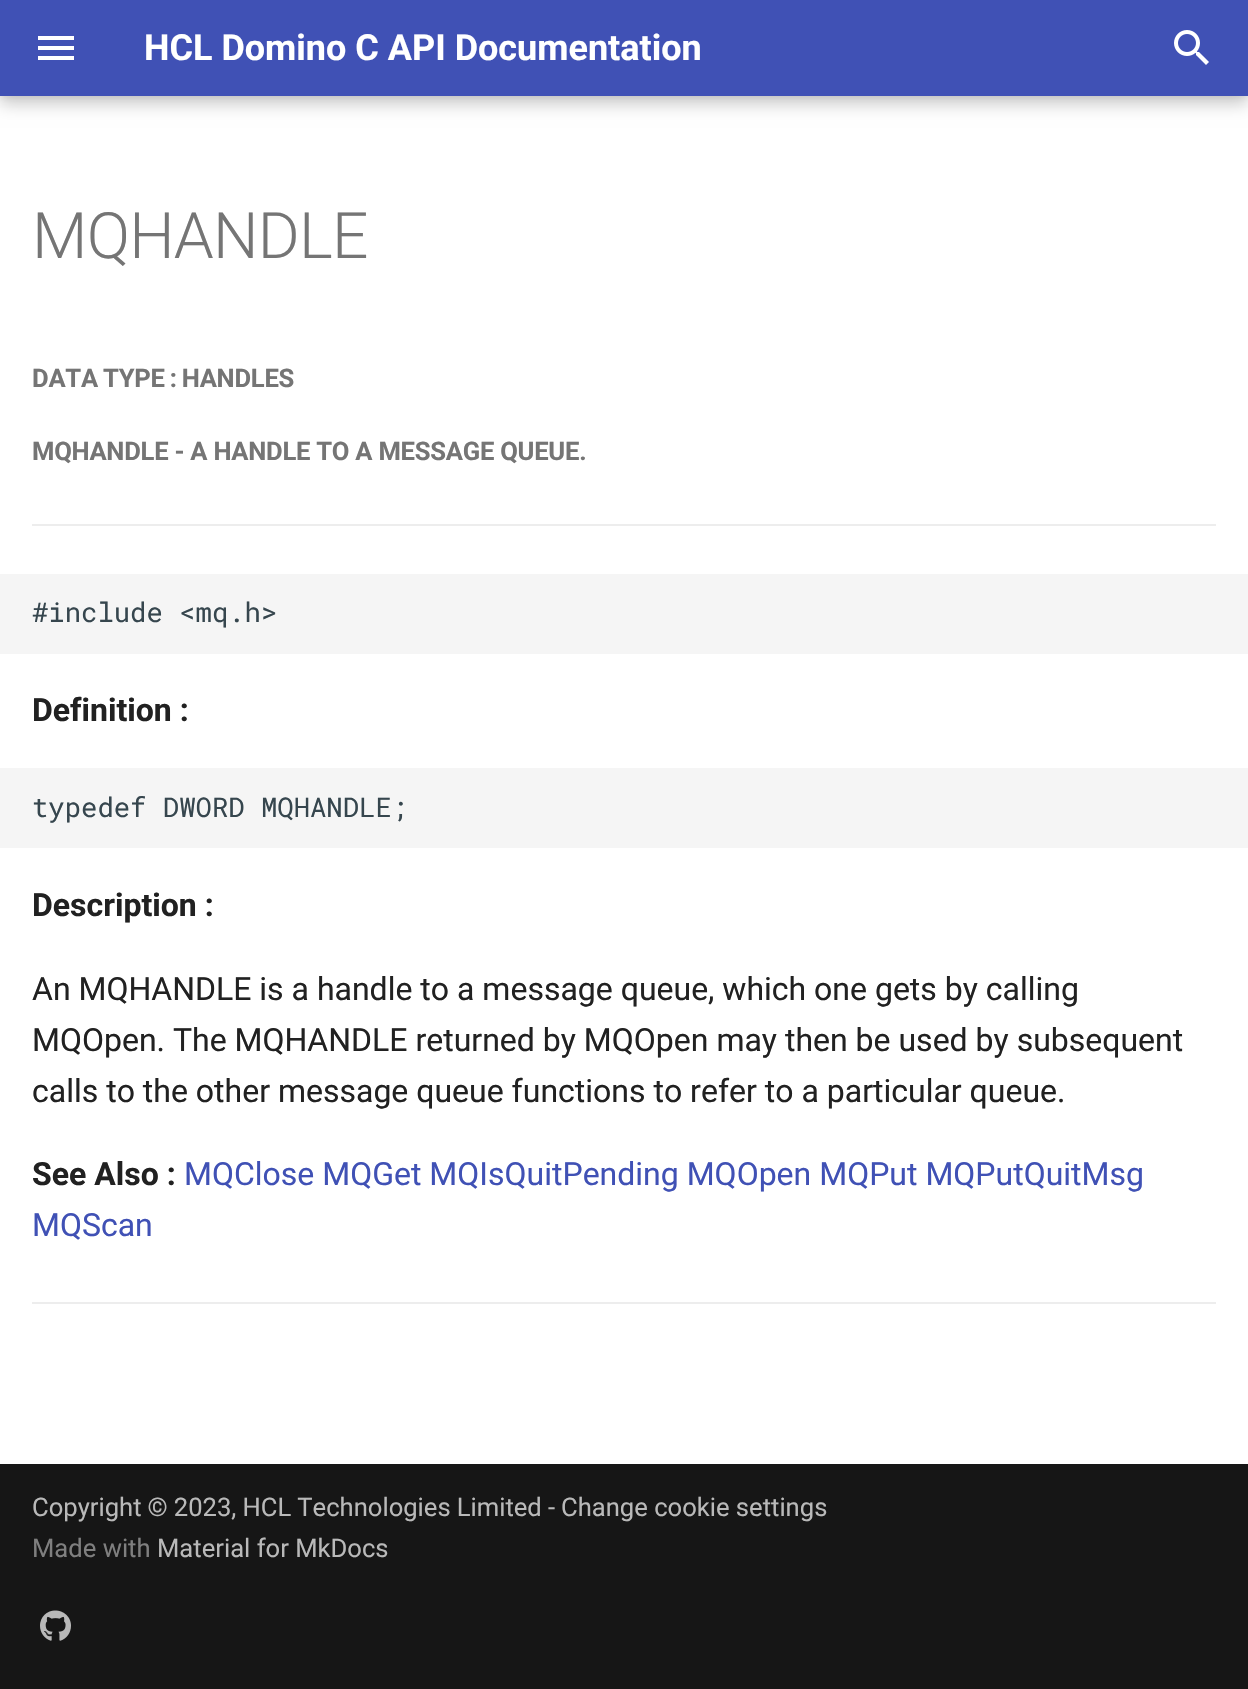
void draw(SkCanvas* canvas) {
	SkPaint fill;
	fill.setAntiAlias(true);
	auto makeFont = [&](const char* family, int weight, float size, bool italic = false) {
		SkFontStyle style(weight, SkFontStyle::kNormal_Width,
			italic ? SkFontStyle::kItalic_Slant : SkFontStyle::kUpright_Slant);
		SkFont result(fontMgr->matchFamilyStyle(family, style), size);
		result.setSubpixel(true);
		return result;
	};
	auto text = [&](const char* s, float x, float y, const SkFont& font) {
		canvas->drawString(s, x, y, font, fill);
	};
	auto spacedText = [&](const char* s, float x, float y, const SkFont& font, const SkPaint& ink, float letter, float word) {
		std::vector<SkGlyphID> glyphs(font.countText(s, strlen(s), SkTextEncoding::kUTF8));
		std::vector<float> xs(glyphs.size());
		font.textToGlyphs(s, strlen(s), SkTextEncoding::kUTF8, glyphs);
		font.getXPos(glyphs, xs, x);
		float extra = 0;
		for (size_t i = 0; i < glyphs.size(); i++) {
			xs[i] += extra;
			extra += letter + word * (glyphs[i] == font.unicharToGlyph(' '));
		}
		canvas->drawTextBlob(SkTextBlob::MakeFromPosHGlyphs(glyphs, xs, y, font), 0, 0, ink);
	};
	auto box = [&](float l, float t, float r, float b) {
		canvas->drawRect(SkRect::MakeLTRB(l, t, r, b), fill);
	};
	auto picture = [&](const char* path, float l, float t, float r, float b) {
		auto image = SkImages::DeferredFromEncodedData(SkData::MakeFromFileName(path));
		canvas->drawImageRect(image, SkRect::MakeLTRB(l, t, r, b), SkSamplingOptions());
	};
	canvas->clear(0xFFFFFFFF);
	fill.setColor(0x33000000);
	fill.setMaskFilter(SkMaskFilter::MakeBlur(kNormal_SkBlurStyle, 8));
	canvas->drawRect(SkRect::MakeLTRB(0, 8, 1248, 104), fill);
	fill.setMaskFilter(nullptr);
	fill.setColor(0x1A000000);
	fill.setMaskFilter(SkMaskFilter::MakeBlur(kNormal_SkBlurStyle, 4));
	canvas->drawRect(SkRect::MakeLTRB(0, 0, 1248, 96), fill);
	fill.setMaskFilter(nullptr);
	fill.setColor(0xFF4051B5);
	box(0, 0, 1248, 96);
	picture("image0.png", 38, 36, 74, 60);
	picture("image1.png", 1174, 30, 1209, 65);
	fill.setColor(0xFFEDEDED);
	box(32, 524, 1216, 526);
	fill.setColor(0xFFF5F5F5);
	box(0, 574, 1248, 654);
	box(0, 768, 1248, 848);
	fill.setColor(0xFFEDEDED);
	box(32, 1302, 1216, 1304);
	fill.setColor(0xFF161616);
	box(0, 1464, 1248, 1689);
	picture("image2.png", 40, 1610, 71, 1641);
	auto font1 = makeFont("Roboto", 700, 36);
	fill.setColor(0xFFFFFFFF);
	text("HCL Domino C API Documentation", 144, 60, font1);
	auto font2 = makeFont("Roboto", 300, 64);
	fill.setColor(0xFF757575);
	spacedText("MQHANDLE", 32, 258, font2, fill, -0.75f, 0);
	auto font3 = makeFont("Roboto", 700, 25.6f);
	spacedText("DATA TYPE : HANDLES", 32, 387, font3, fill, -0.25f, -1);
	spacedText("MQHANDLE - A HANDLE TO A MESSAGE QUEUE.", 32, 460, font3, fill, -0.25f, 0);
	auto font4 = makeFont("Roboto Mono", 400, 27.25f);
	fill.setColor(0xFF36464E);
	text("#include <mq.h>", 32, 622, font4);
	auto font5 = makeFont("Roboto", 700, 32);
	fill.setColor(0xFF212121);
	text("Definition :", 32, 721, font5);
	fill.setColor(0xFF36464E);
	text("typedef DWORD MQHANDLE;", 32, 817, font4);
	fill.setColor(0xFF212121);
	text("Description :", 32, 916, font5);
	auto font6 = makeFont("Roboto", 400, 32);
	text("An MQHANDLE is a handle to a message queue, which one gets by calling", 32, 1000, font6);
	text("MQOpen. The MQHANDLE returned by MQOpen may then be used by subsequent", 32, 1051, font6);
	text("calls to the other message queue functions to refer to a particular queue.", 32, 1102, font6);
	text("See Also :", 32, 1185, font5);
	fill.setColor(0xFF4051B5);
	text("MQClose MQGet MQIsQuitPending MQOpen MQPut MQPutQuitMsg", 184, 1185, font6);
	text("MQScan", 32, 1236, font6);
	auto font7 = makeFont("Roboto", 400, 25.6f);
	fill.setColor(0xFFB9B9B9);
	spacedText("Copyright © 2023, HCL Technologies Limited -", 32, 1516, font7, fill, 0, -0.25f);
	text("Change cookie settings", 561, 1516, font7);
	fill.setColor(0xFF7F7F7F);
	text("Made with", 32, 1557, font7);
	fill.setColor(0xFFB9B9B9);
	text("Material for MkDocs", 157, 1557, font7);
}
